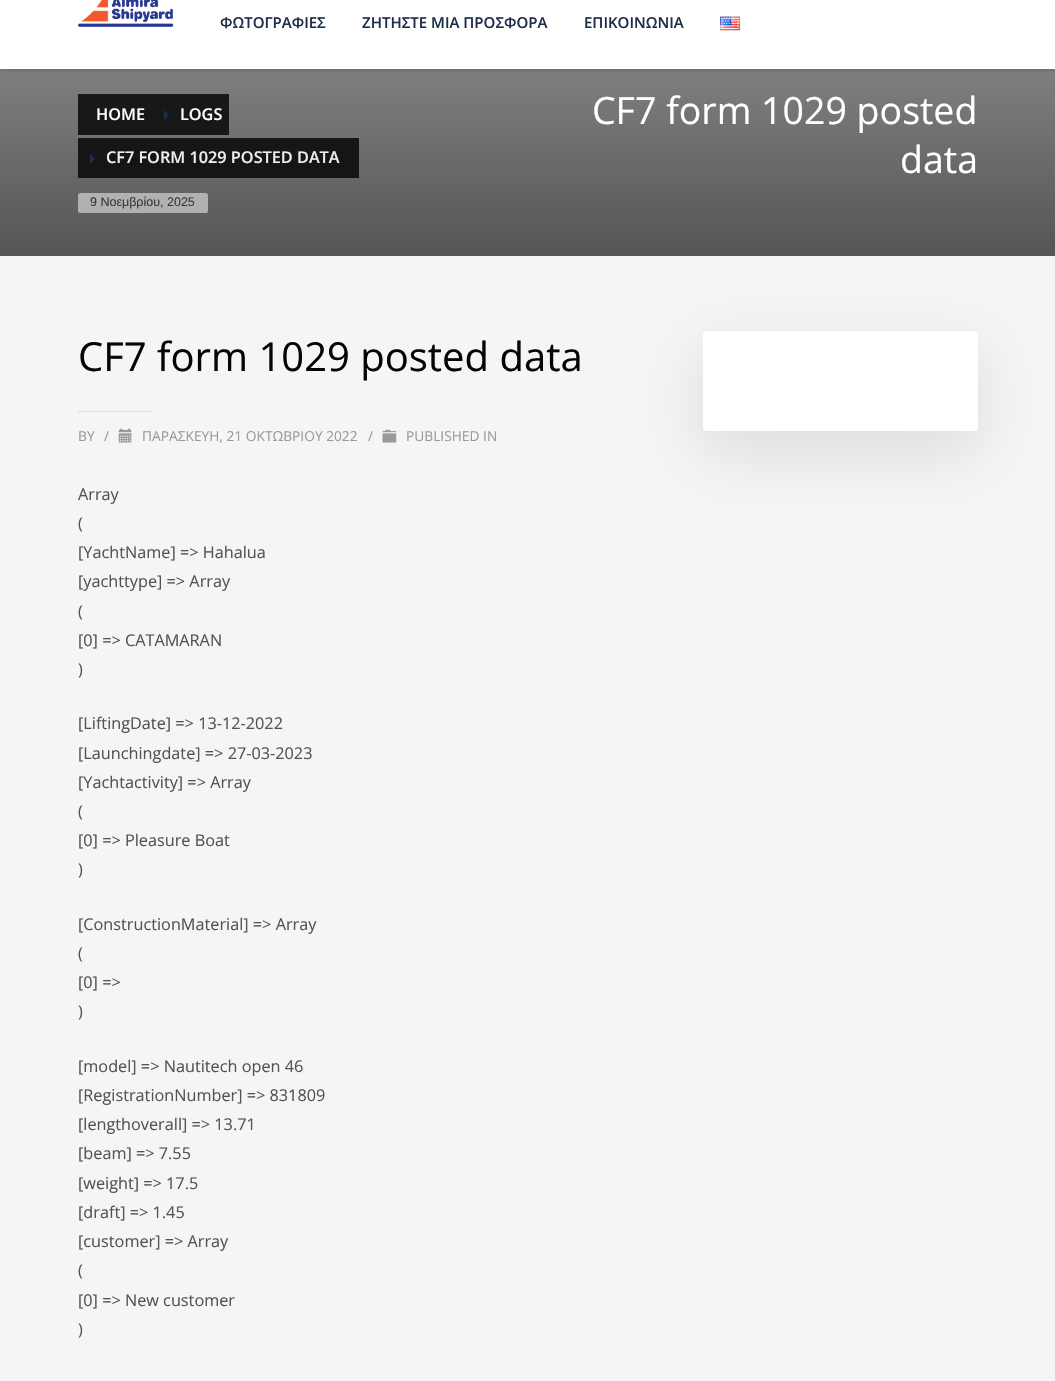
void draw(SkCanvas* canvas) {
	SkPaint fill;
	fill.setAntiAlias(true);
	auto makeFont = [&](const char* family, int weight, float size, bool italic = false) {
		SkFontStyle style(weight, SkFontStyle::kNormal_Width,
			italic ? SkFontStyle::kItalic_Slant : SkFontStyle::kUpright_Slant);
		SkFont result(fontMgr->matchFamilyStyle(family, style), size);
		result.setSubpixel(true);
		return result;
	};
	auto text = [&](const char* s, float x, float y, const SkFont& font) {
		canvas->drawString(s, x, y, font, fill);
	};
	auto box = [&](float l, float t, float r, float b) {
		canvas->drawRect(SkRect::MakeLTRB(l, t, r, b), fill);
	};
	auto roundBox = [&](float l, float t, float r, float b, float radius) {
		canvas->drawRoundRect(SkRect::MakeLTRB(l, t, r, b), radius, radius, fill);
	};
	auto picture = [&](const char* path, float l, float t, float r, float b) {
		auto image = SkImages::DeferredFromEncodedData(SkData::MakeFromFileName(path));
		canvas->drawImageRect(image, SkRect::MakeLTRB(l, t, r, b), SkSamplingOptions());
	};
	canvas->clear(0xFFF5F5F5);
	{
		const SkColor colors[] = {0xFFA9A9A9, 0xFF555555};
		const float stops[] = {0, 1};
		const SkPoint ends[] = {{528, -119}, {528, 256}};
		fill.setShader(SkGradientShader::MakeLinear(ends, colors, stops, 2, SkTileMode::kClamp));
		fill.setAlpha(255);
	}
	box(0, 69, 1055, 256);
	fill.setShader(nullptr);
	fill.setColor(0x40000000);
	fill.setMaskFilter(SkMaskFilter::MakeBlur(kNormal_SkBlurStyle, 3));
	canvas->drawRect(SkRect::MakeLTRB(0, -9, 1055, 69), fill);
	fill.setMaskFilter(nullptr);
	fill.setColor(0xFFFFFFFF);
	box(0, 0, 1055, 69);
	picture("image0.png", 77, 0, 174, 27);
	picture("image1.png", 720, 16, 741, 31);
	{
		const SkColor colors[] = {0xFF222222, 0xFF111111};
		const float stops[] = {0, 1};
		const SkPoint ends[] = {{528, -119}, {528, 256}};
		fill.setShader(SkGradientShader::MakeLinear(ends, colors, stops, 2, SkTileMode::kClamp));
		fill.setAlpha(255);
	}
	box(78, 138, 359, 178);
	box(151, 94, 229, 135);
	box(78, 94, 151, 135);
	fill.setShader(nullptr);
	fill.setColor(0xFF1C2E4A);
	canvas->drawPath(SkPathBuilder().moveTo(164, 120).lineTo(164, 110).lineTo(169, 115).close().detach(), fill);
	canvas->drawPath(SkPathBuilder().moveTo(90, 164).lineTo(90, 154).lineTo(95, 159).close().detach(), fill);
	fill.setColor(0x80FFFFFF);
	roundBox(78, 193, 208, 213, 2.5f);
	fill.setColor(0xFFDDDDDD);
	box(78, 411, 153, 412);
	picture("image2.png", 118, 428, 132, 443);
	picture("image3.png", 382, 429, 397, 443);
	fill.setColor(0x1A000000);
	fill.setMaskFilter(SkMaskFilter::MakeBlur(kNormal_SkBlurStyle, 31));
	canvas->drawRoundRect(SkRect::MakeLTRB(703, 351, 978, 451), 4, 4, fill);
	fill.setMaskFilter(nullptr);
	fill.setColor(0xFFFFFFFF);
	roundBox(703, 331, 978, 431, 4);
	auto font1 = makeFont("Open Sans", 600, 15);
	fill.setColor(0xFF1C2E4A);
	text("ΦΩΤΟΓΡΑΦΙΕΣ", 220, 28, font1);
	text("ΖΗΤΗΣΤΕ ΜΙΑ ΠΡΟΣΦΟΡΑ", 362, 28, font1);
	text("ΕΠΙΚΟΙΝΩΝΙΑ", 584, 28, font1);
	auto font2 = makeFont("Open Sans", 600, 16.25f);
	fill.setColor(0xFFFFFFFF);
	text("HOME", 96, 120, font2);
	text("LOGS", 180, 120, font2);
	fill.setColor(0xFFEEEEEE);
	text("CF7 FORM 1029 POSTED DATA", 106, 163, font2);
	auto font3 = makeFont("Liberation Sans", 400, 12.5f);
	fill.setColor(0xFF383838);
	text("9 Νοεμβρίου, 2025", 90, 206, font3);
	auto font4 = makeFont("Open Sans", 400, 37.5f);
	fill.setColor(0xFFFFFFFF);
	text("CF7 form 1029 posted", 592, 124, font4);
	text("data", 900, 173, font4);
	auto font5 = makeFont("Open Sans", 400, 40);
	fill.setColor(0xFF050505);
	text("CF7 form 1029 posted data", 78, 371, font5);
	auto font6 = makeFont("Open Sans", 400, 13.75f);
	fill.setColor(0xFF9A9A9A);
	text("BY", 78, 441, font6);
	text("/", 104, 441, font6);
	text("ΠΑΡΑΣΚΕΥΗ, 21 ΟΚΤΩΒΡΙΟΥ 2022", 142, 441, font6);
	text("/", 368, 441, font6);
	text("PUBLISHED IN", 406, 441, font6);
	auto font7 = makeFont("Open Sans", 400, 16.25f);
	fill.setColor(0xFF535353);
	text("Array", 78, 500, font7);
	text("(", 78, 529, font7);
	text("[YachtName] => Hahalua", 78, 558, font7);
	text("[yachttype] => Array", 78, 587, font7);
	text("(", 78, 617, font7);
	text("[0] => CATAMARAN", 78, 646, font7);
	text(")", 78, 675, font7);
	text("[LiftingDate] => 13-12-2022", 78, 729, font7);
	text("[Launchingdate] => 27-03-2023", 78, 759, font7);
	text("[Yachtactivity] => Array", 78, 788, font7);
	text("(", 78, 817, font7);
	text("[0] => Pleasure Boat", 78, 846, font7);
	text(")", 78, 875, font7);
	text("[ConstructionMaterial] => Array", 78, 930, font7);
	text("(", 78, 959, font7);
	text("[0] =>", 78, 988, font7);
	text(")", 78, 1017, font7);
	text("[model] => Nautitech open 46", 78, 1072, font7);
	text("[RegistrationNumber] => 831809", 78, 1101, font7);
	text("[lengthoverall] => 13.71", 78, 1130, font7);
	text("[beam] => 7.55", 78, 1159, font7);
	text("[weight] => 17.5", 78, 1189, font7);
	text("[draft] => 1.45", 78, 1218, font7);
	text("[customer] => Array", 78, 1247, font7);
	text("(", 78, 1276, font7);
	text("[0] => New customer", 78, 1306, font7);
	text(")", 78, 1335, font7);
}
